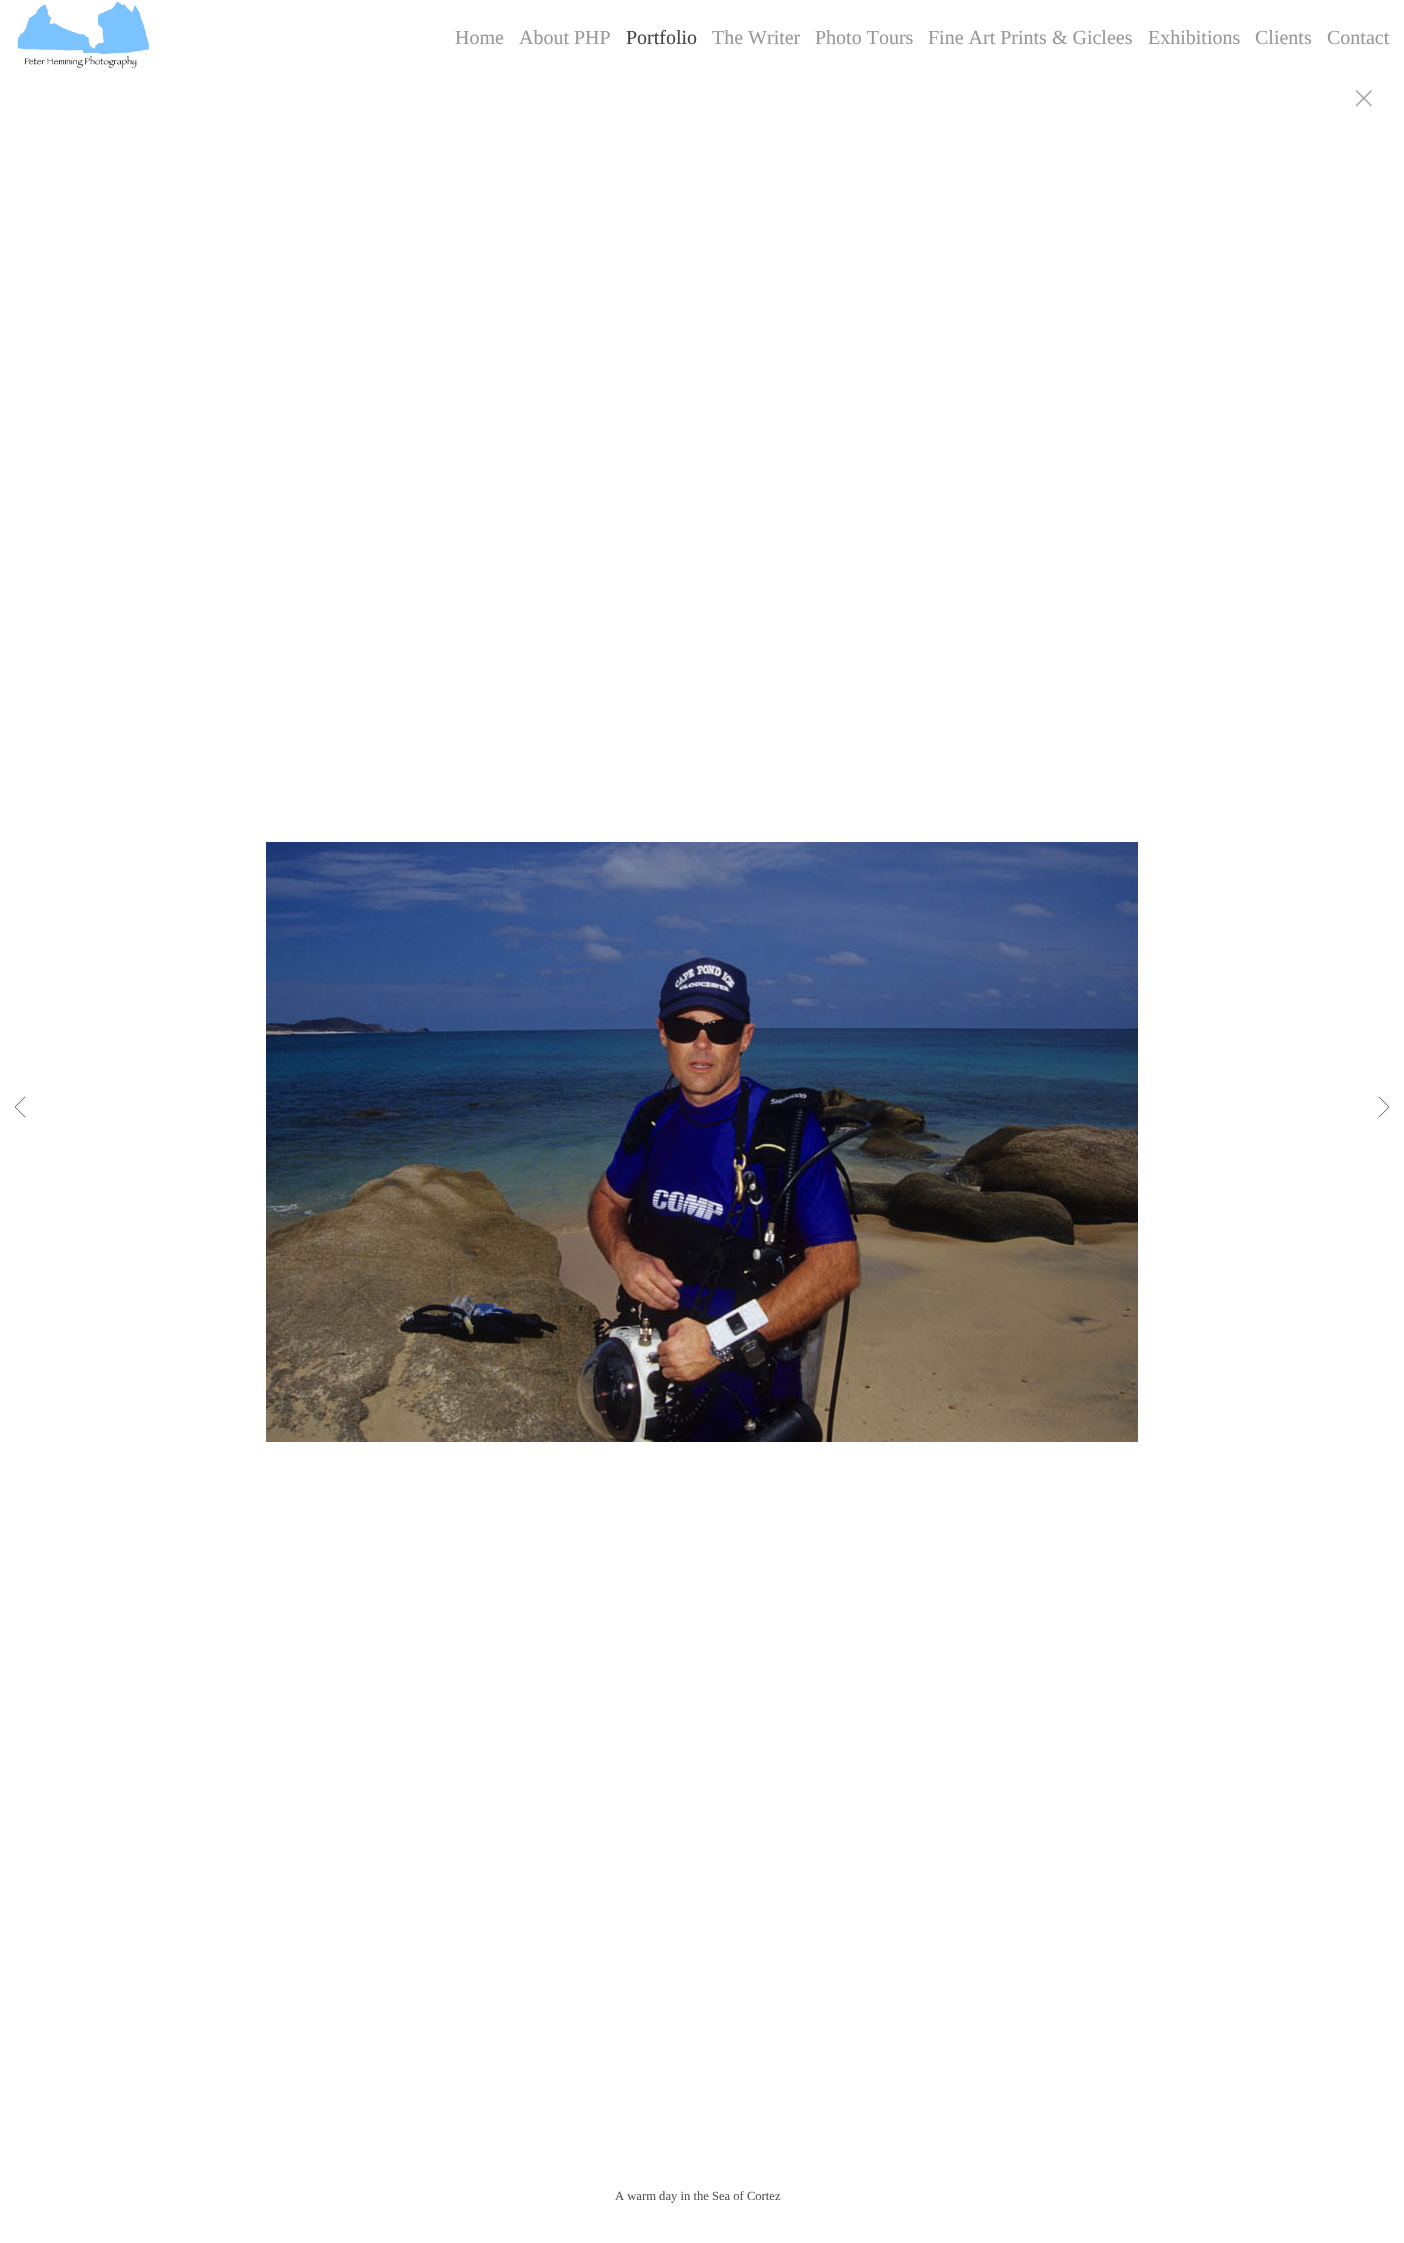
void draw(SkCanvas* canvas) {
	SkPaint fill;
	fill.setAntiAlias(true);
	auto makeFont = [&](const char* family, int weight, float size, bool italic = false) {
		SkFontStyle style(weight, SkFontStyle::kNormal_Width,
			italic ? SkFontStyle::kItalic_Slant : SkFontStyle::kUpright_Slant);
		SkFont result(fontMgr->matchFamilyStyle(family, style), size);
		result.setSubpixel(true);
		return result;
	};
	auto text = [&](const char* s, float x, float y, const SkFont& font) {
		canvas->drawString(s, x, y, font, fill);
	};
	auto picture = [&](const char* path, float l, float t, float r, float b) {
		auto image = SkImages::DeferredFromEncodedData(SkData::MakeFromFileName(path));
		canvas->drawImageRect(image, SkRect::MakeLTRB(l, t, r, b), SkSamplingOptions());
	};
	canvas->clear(0xFFFFFFFF);
	picture("image0.png", 17, 2, 151, 69);
	picture("image1.png", 1355, 90, 1372, 107);
	picture("image2.png", 266, 842, 1138, 1442);
	fill.setColor(0xFF555555);
	canvas->drawPath(SkPathBuilder().moveTo(15, 1106.5f).lineTo(15, 1107.5f).lineTo(25, 1117.5f).lineTo(25.5f, 1117).lineTo(15.5f, 1107).lineTo(25.5f, 1097).lineTo(25, 1096.5f).close().detach(), fill);
	canvas->drawPath(SkPathBuilder().moveTo(1389, 1106.5f).lineTo(1389, 1107.5f).lineTo(1379, 1117.5f).lineTo(1378.5f, 1117).lineTo(1388.5f, 1107).lineTo(1378.5f, 1097).lineTo(1379, 1096.5f).close().detach(), fill);
	auto font1 = makeFont("Liberation Serif", 400, 20);
	fill.setColor(0xFF999999);
	text("Home", 455, 44, font1);
	text("About PHP", 519, 44, font1);
	fill.setColor(0xFF444444);
	text("Portfolio", 626, 44, font1);
	fill.setColor(0xFF999999);
	text("The Writer", 712, 44, font1);
	text("Photo Tours", 815, 44, font1);
	text("Fine Art Prints & Giclees", 928, 44, font1);
	text("Exhibitions", 1148, 44, font1);
	text("Clients", 1255, 44, font1);
	text("Contact", 1327, 44, font1);
	auto font2 = makeFont("Liberation Serif", 400, 12.6f);
	fill.setColor(0xFF555555);
	text("A warm day in the Sea of Cortez", 615, 2200, font2);
}
